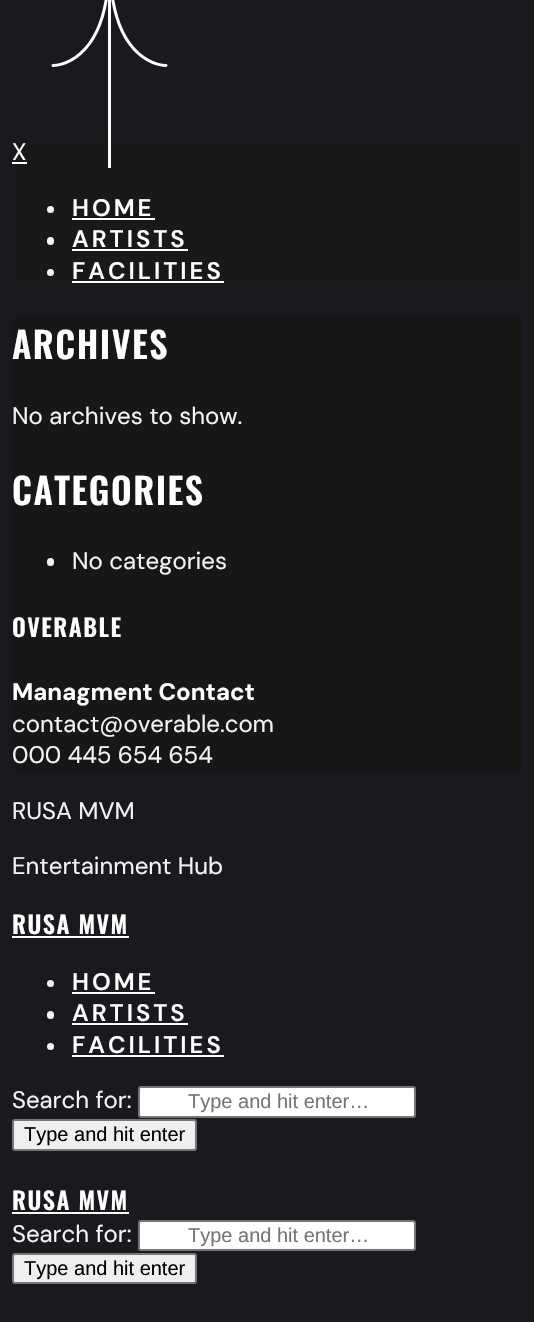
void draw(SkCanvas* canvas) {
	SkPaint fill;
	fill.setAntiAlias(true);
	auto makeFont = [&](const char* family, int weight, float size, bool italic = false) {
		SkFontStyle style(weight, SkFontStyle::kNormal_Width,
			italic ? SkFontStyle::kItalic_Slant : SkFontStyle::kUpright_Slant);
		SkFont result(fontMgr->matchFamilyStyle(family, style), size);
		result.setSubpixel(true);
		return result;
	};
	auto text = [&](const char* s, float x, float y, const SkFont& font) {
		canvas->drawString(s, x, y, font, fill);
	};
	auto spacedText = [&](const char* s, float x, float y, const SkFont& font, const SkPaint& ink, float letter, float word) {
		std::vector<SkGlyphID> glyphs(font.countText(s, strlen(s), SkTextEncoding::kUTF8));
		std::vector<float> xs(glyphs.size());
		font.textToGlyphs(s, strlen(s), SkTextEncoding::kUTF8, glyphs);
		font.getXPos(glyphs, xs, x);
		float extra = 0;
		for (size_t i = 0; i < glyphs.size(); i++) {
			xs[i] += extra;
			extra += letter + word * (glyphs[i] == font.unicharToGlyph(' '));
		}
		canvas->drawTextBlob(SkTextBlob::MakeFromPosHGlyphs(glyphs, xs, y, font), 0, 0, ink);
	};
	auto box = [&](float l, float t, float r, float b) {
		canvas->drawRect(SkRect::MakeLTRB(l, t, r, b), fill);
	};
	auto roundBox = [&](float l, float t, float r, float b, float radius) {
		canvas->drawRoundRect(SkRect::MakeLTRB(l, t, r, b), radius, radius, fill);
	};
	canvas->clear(0xFF1B191E);
	fill.setStyle(SkPaint::kStroke_Style);
	fill.setStrokeWidth(3);
	fill.setStrokeCap(SkPaint::kRound_Cap);
	fill.setColor(0xFFFFFFFF);
	canvas->drawPath(SkPathBuilder().moveTo(53, 65.5f).cubicTo(53, 65.5f, 108, 66.5f, 109, -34.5f).detach(), fill);
	fill.setStyle(SkPaint::kFill_Style);
	fill.setColor(0xFF191919);
	box(12, 137, 522, 287);
	fill.setColor(0xFFFFFFFF);
	box(108, 0, 111, 168);
	fill.setStyle(SkPaint::kStroke_Style);
	canvas->drawPath(SkPathBuilder().moveTo(166, 65.5f).cubicTo(166, 65.5f, 111, 66.5f, 110, -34.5f).detach(), fill);
	fill.setStyle(SkPaint::kFill_Style);
	box(12, 162, 27, 164);
	fill.setColor(0xFFF4F4F4);
	canvas->drawCircle(50.5f, 209.5f, 3.5f, fill);
	fill.setColor(0xFFFFFFFF);
	box(72, 218, 155, 220);
	fill.setColor(0xFFF4F4F4);
	roundBox(47, 237, 54, 245, 3.5f);
	fill.setColor(0xFFFFFFFF);
	box(72, 249, 188, 251);
	fill.setColor(0xFFF4F4F4);
	canvas->drawCircle(50.5f, 272.5f, 3.5f, fill);
	fill.setColor(0xFFFFFFFF);
	box(72, 281, 224, 283);
	fill.setColor(0xFF191616);
	box(12, 317, 522, 771);
	fill.setColor(0xFFF4F4F4);
	roundBox(47, 558, 54, 566, 3.5f);
	fill.setColor(0xFFFFFFFF);
	box(12, 936, 129, 938);
	fill.setColor(0xFFF4F4F4);
	canvas->drawCircle(50.5f, 983.5f, 3.5f, fill);
	fill.setColor(0xFFFFFFFF);
	box(72, 992, 155, 994);
	fill.setColor(0xFFF4F4F4);
	roundBox(47, 1011, 54, 1019, 3.5f);
	fill.setColor(0xFFFFFFFF);
	box(72, 1023, 188, 1025);
	fill.setColor(0xFFF4F4F4);
	canvas->drawCircle(50.5f, 1046.5f, 3.5f, fill);
	fill.setColor(0xFFFFFFFF);
	box(72, 1055, 224, 1057);
	canvas->drawRoundRect(SkRect::MakeLTRB(139, 1087, 415, 1117), 2, 2, fill);
	fill.setStyle(SkPaint::kStroke_Style);
	fill.setStrokeWidth(2);
	fill.setStrokeCap(SkPaint::kButt_Cap);
	fill.setColor(0xFF767676);
	canvas->drawRoundRect(SkRect::MakeLTRB(139, 1087, 415, 1117), 2, 2, fill);
	fill.setStyle(SkPaint::kFill_Style);
	fill.setColor(0xFFEFEFEF);
	canvas->drawRoundRect(SkRect::MakeLTRB(13, 1120, 196, 1150), 2, 2, fill);
	fill.setStyle(SkPaint::kStroke_Style);
	fill.setColor(0xFF767676);
	canvas->drawRoundRect(SkRect::MakeLTRB(13, 1120, 196, 1150), 2, 2, fill);
	fill.setStyle(SkPaint::kFill_Style);
	fill.setColor(0xFFFFFFFF);
	box(12, 1212, 129, 1214);
	canvas->drawRoundRect(SkRect::MakeLTRB(139, 1221, 415, 1250), 2, 2, fill);
	fill.setStyle(SkPaint::kStroke_Style);
	fill.setColor(0xFF767676);
	canvas->drawRoundRect(SkRect::MakeLTRB(139, 1221, 415, 1250), 2, 2, fill);
	fill.setStyle(SkPaint::kFill_Style);
	fill.setColor(0xFFEFEFEF);
	canvas->drawRoundRect(SkRect::MakeLTRB(13, 1254, 196, 1283), 2, 2, fill);
	fill.setStyle(SkPaint::kStroke_Style);
	fill.setColor(0xFF767676);
	canvas->drawRoundRect(SkRect::MakeLTRB(13, 1254, 196, 1283), 2, 2, fill);
	auto font1 = makeFont("DM Sans", 400, 24);
	fill.setStyle(SkPaint::kFill_Style);
	fill.setColor(0xFFFFFFFF);
	text("X", 12, 160, font1);
	auto font2 = makeFont("DM Sans", 600, 24);
	spacedText("HOME", 72, 216, font2, fill, 3, 0);
	spacedText("ARTISTS", 72, 247, font2, fill, 3, 0);
	spacedText("FACILITIES", 72, 279, font2, fill, 3, 0);
	auto font3 = makeFont("Oswald", 600, 36);
	spacedText("ARCHIVES", 12, 359, font3, fill, 1.5f, 0);
	fill.setColor(0xFFF4F4F4);
	text("No archives to show.", 12, 424, font1);
	fill.setColor(0xFFFFFFFF);
	spacedText("CATEGORIES", 12, 505, font3, fill, 1.5f, 0);
	fill.setColor(0xFFF4F4F4);
	text("No categories", 72, 569, font1);
	auto font4 = makeFont("Oswald", 600, 24);
	fill.setColor(0xFFFFFFFF);
	spacedText("OVERABLE", 12, 637, font4, fill, 1.5f, 0);
	auto font5 = makeFont("DM Sans", 700, 24);
	text("Managment Contact", 12, 700, font5);
	fill.setColor(0xFFF4F4F4);
	text("contact@overable.com", 12, 732, font1);
	text("000 445 654 654", 12, 763, font1);
	text("RUSA MVM", 12, 819, font1);
	text("Entertainment Hub", 12, 874, font1);
	fill.setColor(0xFFFFFFFF);
	spacedText("RUSA MVM", 12, 934, font4, fill, 1.5f, 0);
	spacedText("HOME", 72, 990, font2, fill, 3, 0);
	spacedText("ARTISTS", 72, 1021, font2, fill, 3, 0);
	spacedText("FACILITIES", 72, 1053, font2, fill, 3, 0);
	fill.setColor(0xFFF4F4F4);
	text("Search for:", 12, 1108, font1);
	auto font6 = makeFont("Liberation Sans", 400, 20);
	fill.setColor(0xFF757575);
	text("Type and hit enter…", 188, 1108, font6);
	fill.setColor(0xFF000000);
	text("Type and hit enter", 24, 1141, font6);
	fill.setColor(0xFFFFFFFF);
	spacedText("RUSA MVM", 12, 1210, font4, fill, 1.5f, 0);
	fill.setColor(0xFFF4F4F4);
	text("Search for:", 12, 1242, font1);
	fill.setColor(0xFF757575);
	text("Type and hit enter…", 188, 1242, font6);
	fill.setColor(0xFF000000);
	text("Type and hit enter", 24, 1275, font6);
}
